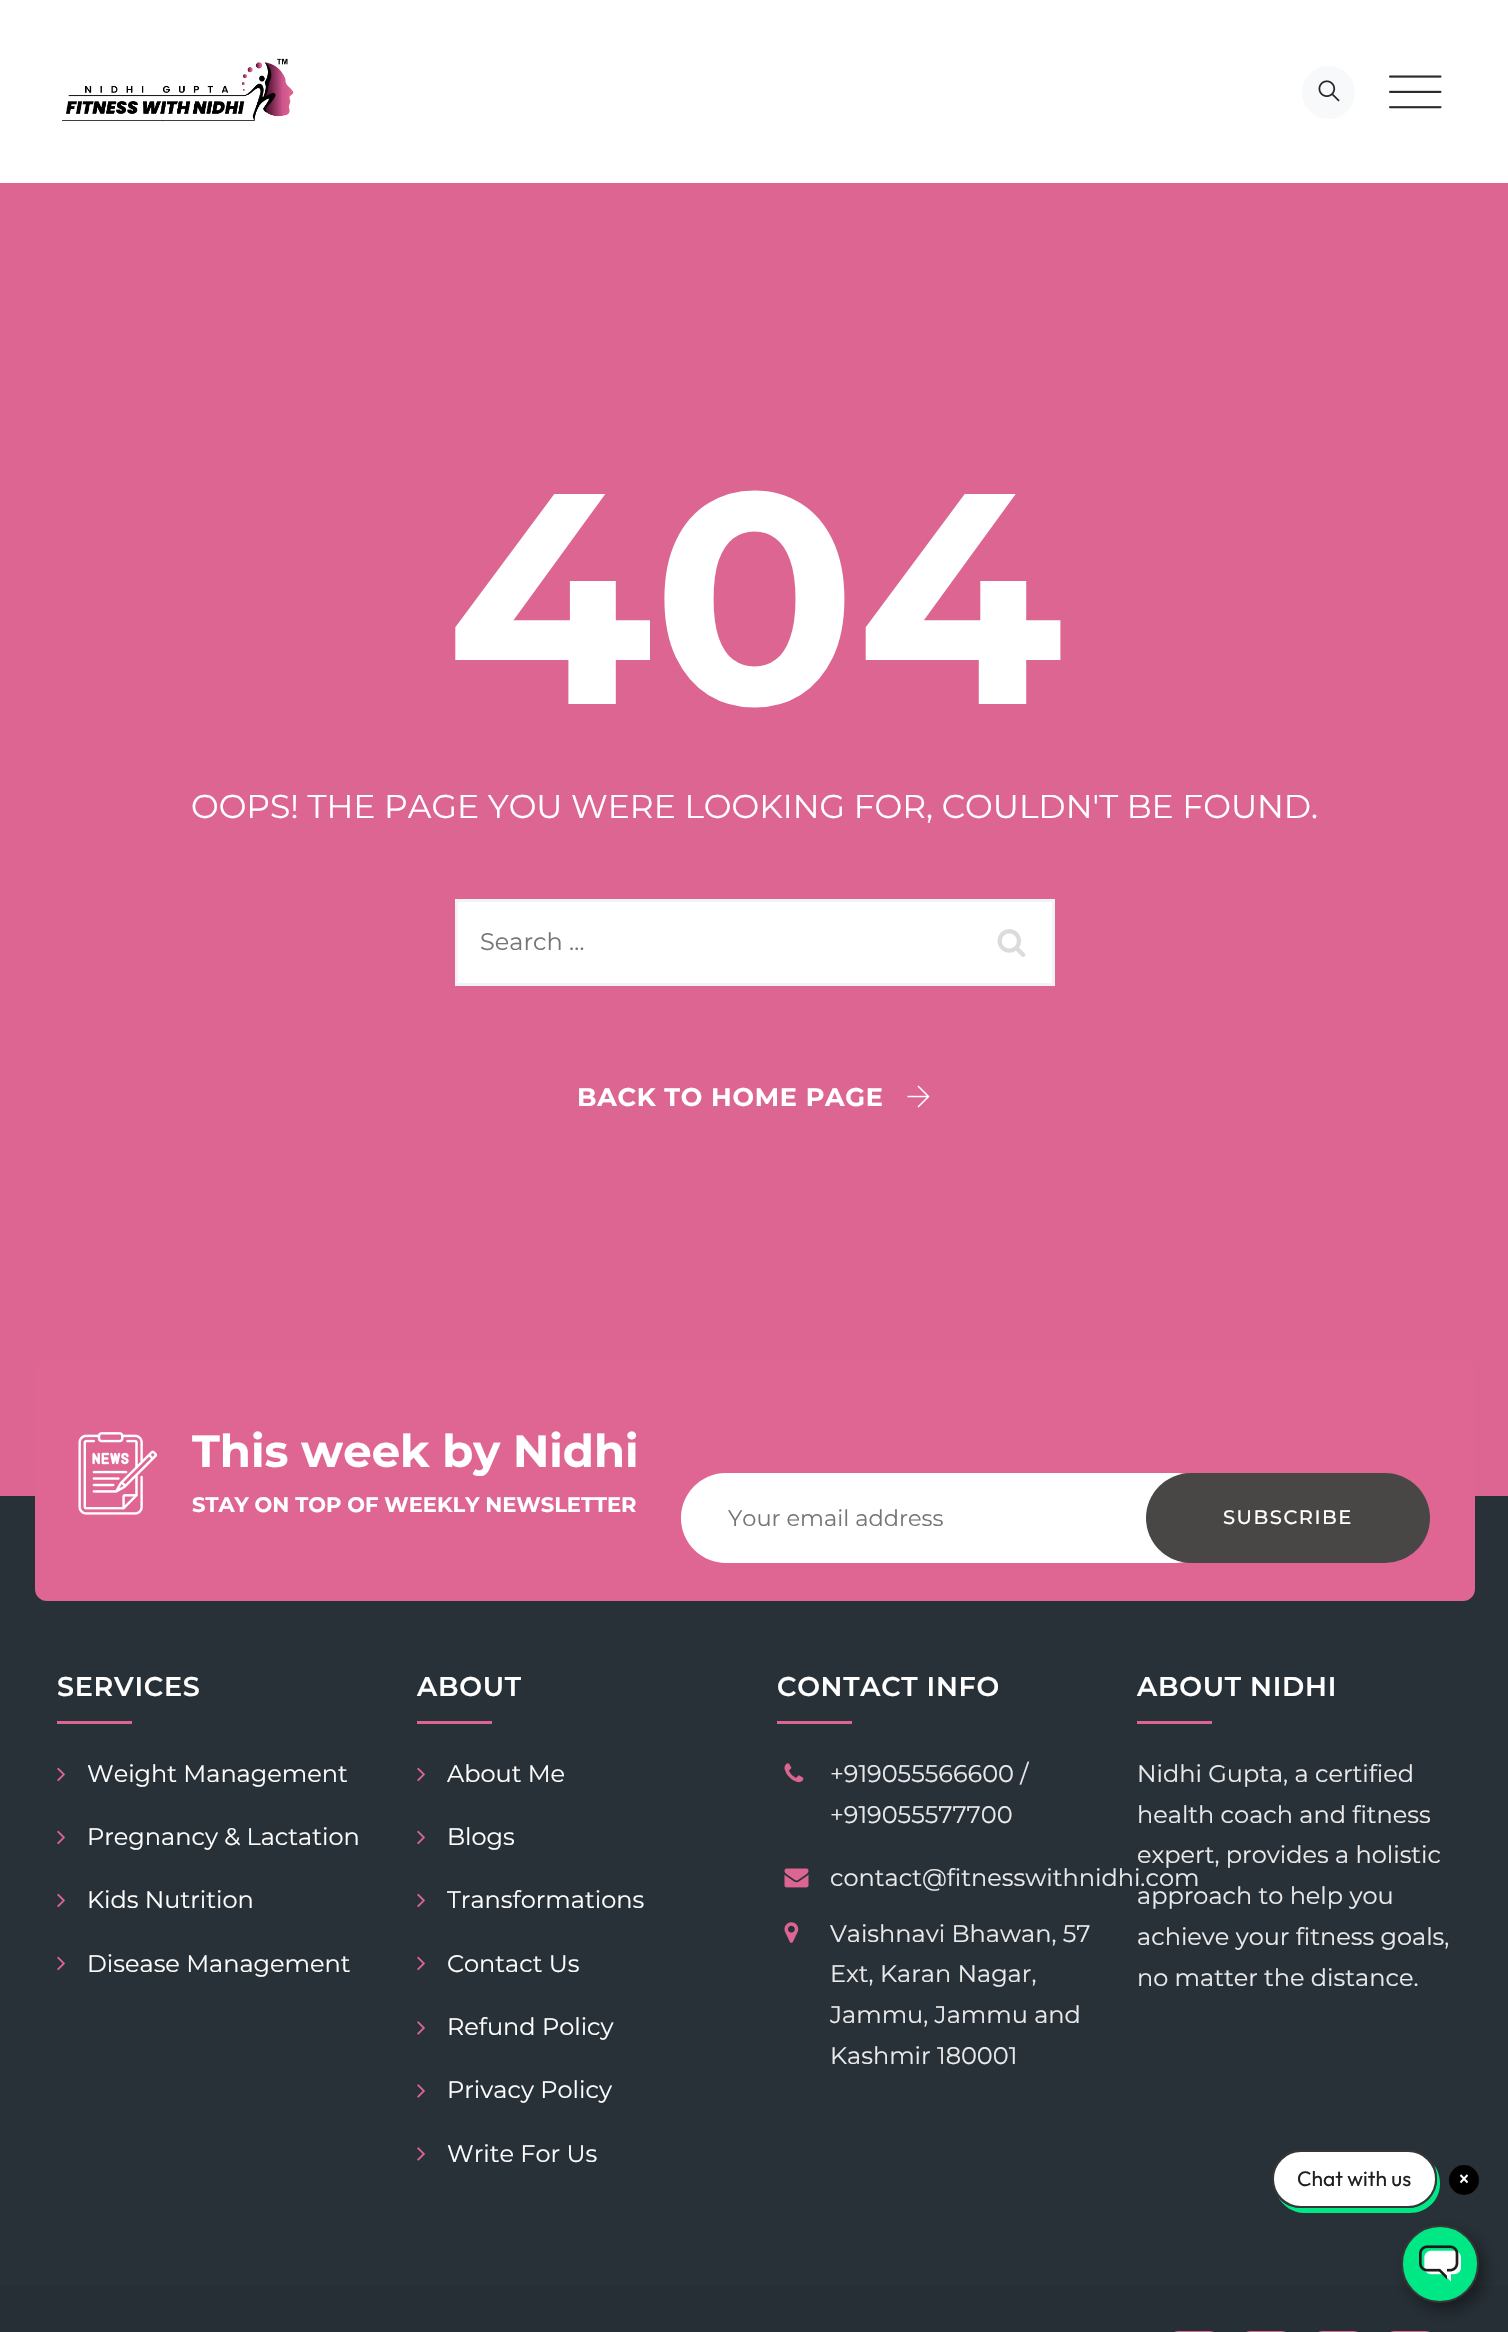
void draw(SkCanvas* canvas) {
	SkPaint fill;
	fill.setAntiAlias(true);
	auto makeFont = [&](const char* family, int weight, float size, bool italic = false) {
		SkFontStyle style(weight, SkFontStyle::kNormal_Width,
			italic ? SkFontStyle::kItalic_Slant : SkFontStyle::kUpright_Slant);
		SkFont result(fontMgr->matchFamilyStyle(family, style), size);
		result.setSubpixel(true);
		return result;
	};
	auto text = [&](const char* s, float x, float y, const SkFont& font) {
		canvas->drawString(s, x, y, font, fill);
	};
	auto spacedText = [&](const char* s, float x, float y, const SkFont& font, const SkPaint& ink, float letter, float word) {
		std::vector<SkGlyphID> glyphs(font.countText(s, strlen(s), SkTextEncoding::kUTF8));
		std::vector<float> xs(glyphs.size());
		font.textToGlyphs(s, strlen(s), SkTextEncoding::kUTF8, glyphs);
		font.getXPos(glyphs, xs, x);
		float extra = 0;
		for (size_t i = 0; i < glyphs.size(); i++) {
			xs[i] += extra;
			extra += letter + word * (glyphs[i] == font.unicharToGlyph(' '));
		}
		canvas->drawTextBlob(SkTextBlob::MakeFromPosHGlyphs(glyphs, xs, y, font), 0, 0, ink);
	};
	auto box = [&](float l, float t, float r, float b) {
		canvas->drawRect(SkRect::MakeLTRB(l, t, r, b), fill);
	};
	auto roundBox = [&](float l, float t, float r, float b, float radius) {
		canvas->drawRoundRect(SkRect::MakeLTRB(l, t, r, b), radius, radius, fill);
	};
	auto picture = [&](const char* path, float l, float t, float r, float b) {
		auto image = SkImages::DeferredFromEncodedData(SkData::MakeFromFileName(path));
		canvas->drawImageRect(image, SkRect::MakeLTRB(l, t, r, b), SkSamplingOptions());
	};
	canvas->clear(0xFFFFFFFF);
	picture("image0.png", 62, 58, 294, 122);
	fill.setColor(0xFFF8F9FA);
	canvas->drawCircle(1328.5f, 92.5f, 26.5f, fill);
	picture("image1.png", 1318, 80, 1340, 102);
	picture("image2.png", 1389, 75, 1442, 109);
	fill.setColor(0xFFDC6592);
	box(0, 183, 1508, 1496);
	fill.setColor(0xFFFFFFFF);
	canvas->drawRect(SkRect::MakeLTRB(456.5f, 900.5f, 1053.5f, 984.5f), fill);
	fill.setStyle(SkPaint::kStroke_Style);
	fill.setStrokeWidth(3);
	fill.setColor(0xFFF2F3F4);
	canvas->drawRect(SkRect::MakeLTRB(456.5f, 900.5f, 1053.5f, 984.5f), fill);
	picture("image3.png", 997, 929, 1026, 957);
	picture("image4.png", 907, 1085, 930, 1108);
	fill.setStyle(SkPaint::kFill_Style);
	fill.setColor(0xFF283138);
	box(0, 1496, 1508, 2286);
	fill.setColor(0xFFDF6692);
	roundBox(35, 1361, 1475, 1601, 12);
	picture("image5.png", 78, 1432, 158, 1515);
	fill.setColor(0xFFFFFFFF);
	roundBox(681, 1473, 1221, 1563, 45);
	fill.setStyle(SkPaint::kStroke_Style);
	fill.setStrokeWidth(2);
	fill.setColor(0x33FFFFFF);
	canvas->drawRoundRect(SkRect::MakeLTRB(682, 1474, 1220, 1562), 44, 44, fill);
	fill.setStyle(SkPaint::kFill_Style);
	fill.setColor(0xFF484746);
	roundBox(1146, 1473, 1430, 1563, 45);
	fill.setColor(0xFFDC6592);
	box(57, 1721, 132, 1724);
	picture("image6.png", 57, 1767, 65, 1782);
	picture("image6.png", 57, 1830, 65, 1845);
	picture("image6.png", 57, 1893, 65, 1908);
	picture("image6.png", 57, 1956, 65, 1971);
	box(417, 1721, 492, 1724);
	picture("image6.png", 417, 1767, 425, 1782);
	picture("image6.png", 417, 1830, 425, 1845);
	picture("image6.png", 417, 1893, 425, 1908);
	picture("image6.png", 417, 1956, 425, 1971);
	picture("image7.png", 417, 2021, 425, 2035);
	picture("image7.png", 417, 2084, 425, 2098);
	picture("image7.png", 417, 2147, 425, 2161);
	box(777, 1721, 852, 1724);
	picture("image8.png", 784, 1763, 804, 1783);
	picture("image9.png", 784, 1868, 809, 1888);
	picture("image10.png", 784, 1922, 799, 1943);
	box(1137, 1721, 1212, 1724);
	fill.setColor(0xFF262F36);
	box(0, 2286, 1508, 2332);
	fill.setColor(0xFFDC6592);
	roundBox(1164, 2331, 1224, 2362, 30);
	roundBox(1236, 2331, 1296, 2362, 30);
	roundBox(1308, 2331, 1368, 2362, 30);
	roundBox(1380, 2331, 1440, 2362, 30);
	fill.setColor(0x66000000);
	fill.setMaskFilter(SkMaskFilter::MakeBlur(kNormal_SkBlurStyle, 7.5f));
	canvas->drawRoundRect(SkRect::MakeLTRB(1407, 2232, 1485, 2310), 39, 39, fill);
	fill.setMaskFilter(nullptr);
	fill.setColor(0xFF00E785);
	canvas->drawPath(SkPathBuilder().moveTo(1278, 2197).cubicTo(1283, 2206, 1293, 2213, 1304, 2213).lineTo(1410, 2213).cubicTo(1427, 2213, 1440, 2200, 1440, 2184).cubicTo(1440, 2177, 1438, 2170, 1434, 2165).cubicTo(1436, 2169, 1437, 2174, 1437, 2179).cubicTo(1437, 2195, 1424, 2208, 1408, 2208).lineTo(1301, 2208).cubicTo(1292, 2208, 1283, 2204, 1278, 2197).close().detach(), fill);
	fill.setColor(0xFFFFFFFF);
	canvas->drawRoundRect(SkRect::MakeLTRB(1273, 2151, 1436, 2207), 28, 28, fill);
	fill.setStyle(SkPaint::kStroke_Style);
	fill.setColor(0xFF363636);
	canvas->drawRoundRect(SkRect::MakeLTRB(1273, 2151, 1436, 2207), 28, 28, fill);
	fill.setStyle(SkPaint::kFill_Style);
	fill.setColor(0xFF000000);
	canvas->drawCircle(1464, 2180, 15, fill);
	fill.setStyle(SkPaint::kStroke_Style);
	fill.setColor(0xFFFFFFFF);
	canvas->drawPath(SkPathBuilder().moveTo(1460.5f, 2175).lineTo(1467.5f, 2182.5f).moveTo(1460.5f, 2182.5f).lineTo(1467.5f, 2175).detach(), fill);
	fill.setStyle(SkPaint::kFill_Style);
	fill.setColor(0xFF00E785);
	canvas->drawCircle(1440, 2264, 38, fill);
	fill.setStyle(SkPaint::kStroke_Style);
	fill.setColor(0xFF363636);
	canvas->drawCircle(1440, 2264, 38, fill);
	picture("image11.png", 1419, 2245, 1461, 2282);
	auto font1 = makeFont("Montserrat", 700, 300);
	fill.setStyle(SkPaint::kFill_Style);
	fill.setColor(0xFFFFFFFF);
	text("404", 446, 704, font1);
	auto font2 = makeFont("Montserrat", 400, 33);
	text("OOPS! THE PAGE YOU WERE LOOKING FOR, COULDN'T BE FOUND.", 191, 818, font2);
	auto font3 = makeFont("Montserrat", 400, 24);
	fill.setColor(0xFF757575);
	text("Search …", 480, 950, font3);
	auto font4 = makeFont("Montserrat", 700, 25.5f);
	fill.setColor(0xFFFFFFFF);
	spacedText("BACK TO HOME PAGE", 577, 1106, font4, fill, 0.75f, 0);
	auto font5 = makeFont("Montserrat", 700, 45);
	text("This week by Nidhi", 192, 1467, font5);
	auto font6 = makeFont("Montserrat", 700, 21);
	text("STAY ON TOP OF WEEKLY NEWSLETTER", 192, 1512, font6);
	auto font7 = makeFont("Montserrat", 400, 22.5f);
	fill.setColor(0xFF757575);
	text("Your email address", 728, 1526, font7);
	auto font8 = makeFont("Montserrat", 500, 19.5f);
	fill.setColor(0xFFFFFFFF);
	spacedText("SUBSCRIBE", 1223, 1524, font8, fill, 1.5f, 0);
	auto font9 = makeFont("Montserrat", 600, 27);
	spacedText("SERVICES", 57, 1696, font9, fill, 0.75f, 0);
	text("Weight Management", 87, 1782, font3);
	text("Pregnancy & Lactation", 87, 1845, font3);
	text("Kids Nutrition", 87, 1908, font3);
	text("Disease Management", 87, 1972, font3);
	spacedText("ABOUT", 417, 1696, font9, fill, 0.75f, 0);
	text("About Me", 447, 1782, font3);
	text("Blogs", 447, 1845, font3);
	text("Transformations", 447, 1908, font3);
	text("Contact Us", 447, 1972, font3);
	text("Refund Policy", 447, 2035, font3);
	text("Privacy Policy", 447, 2098, font3);
	text("Write For Us", 447, 2162, font3);
	spacedText("CONTACT INFO", 777, 1696, font9, fill, 0.75f, 0);
	fill.setColor(0xFFEAEAEB);
	text("+919055566600 /", 830, 1782, font3);
	text("+919055577700", 830, 1823, font3);
	text("contact@fitnesswithnidhi.com", 830, 1886, font3);
	text("Vaishnavi Bhawan, 57", 830, 1942, font3);
	text("Ext, Karan Nagar,", 830, 1982, font3);
	text("Jammu, Jammu and", 830, 2023, font3);
	text("Kashmir 180001", 830, 2064, font3);
	fill.setColor(0xFFFFFFFF);
	spacedText("ABOUT NIDHI", 1137, 1696, font9, fill, 0.75f, 0);
	fill.setColor(0xFFEAEAEB);
	text("Nidhi Gupta, a certified", 1137, 1782, font3);
	text("health coach and fitness", 1137, 1823, font3);
	text("expert, provides a holistic", 1137, 1863, font3);
	text("approach to help you", 1137, 1904, font3);
	text("achieve your fitness goals,", 1137, 1945, font3);
	text("no matter the distance.", 1137, 1986, font3);
	auto font10 = makeFont("Outfit", 400, 21);
	fill.setColor(0xFF202020);
	text("Chat with us", 1297, 2186, font10);
}
